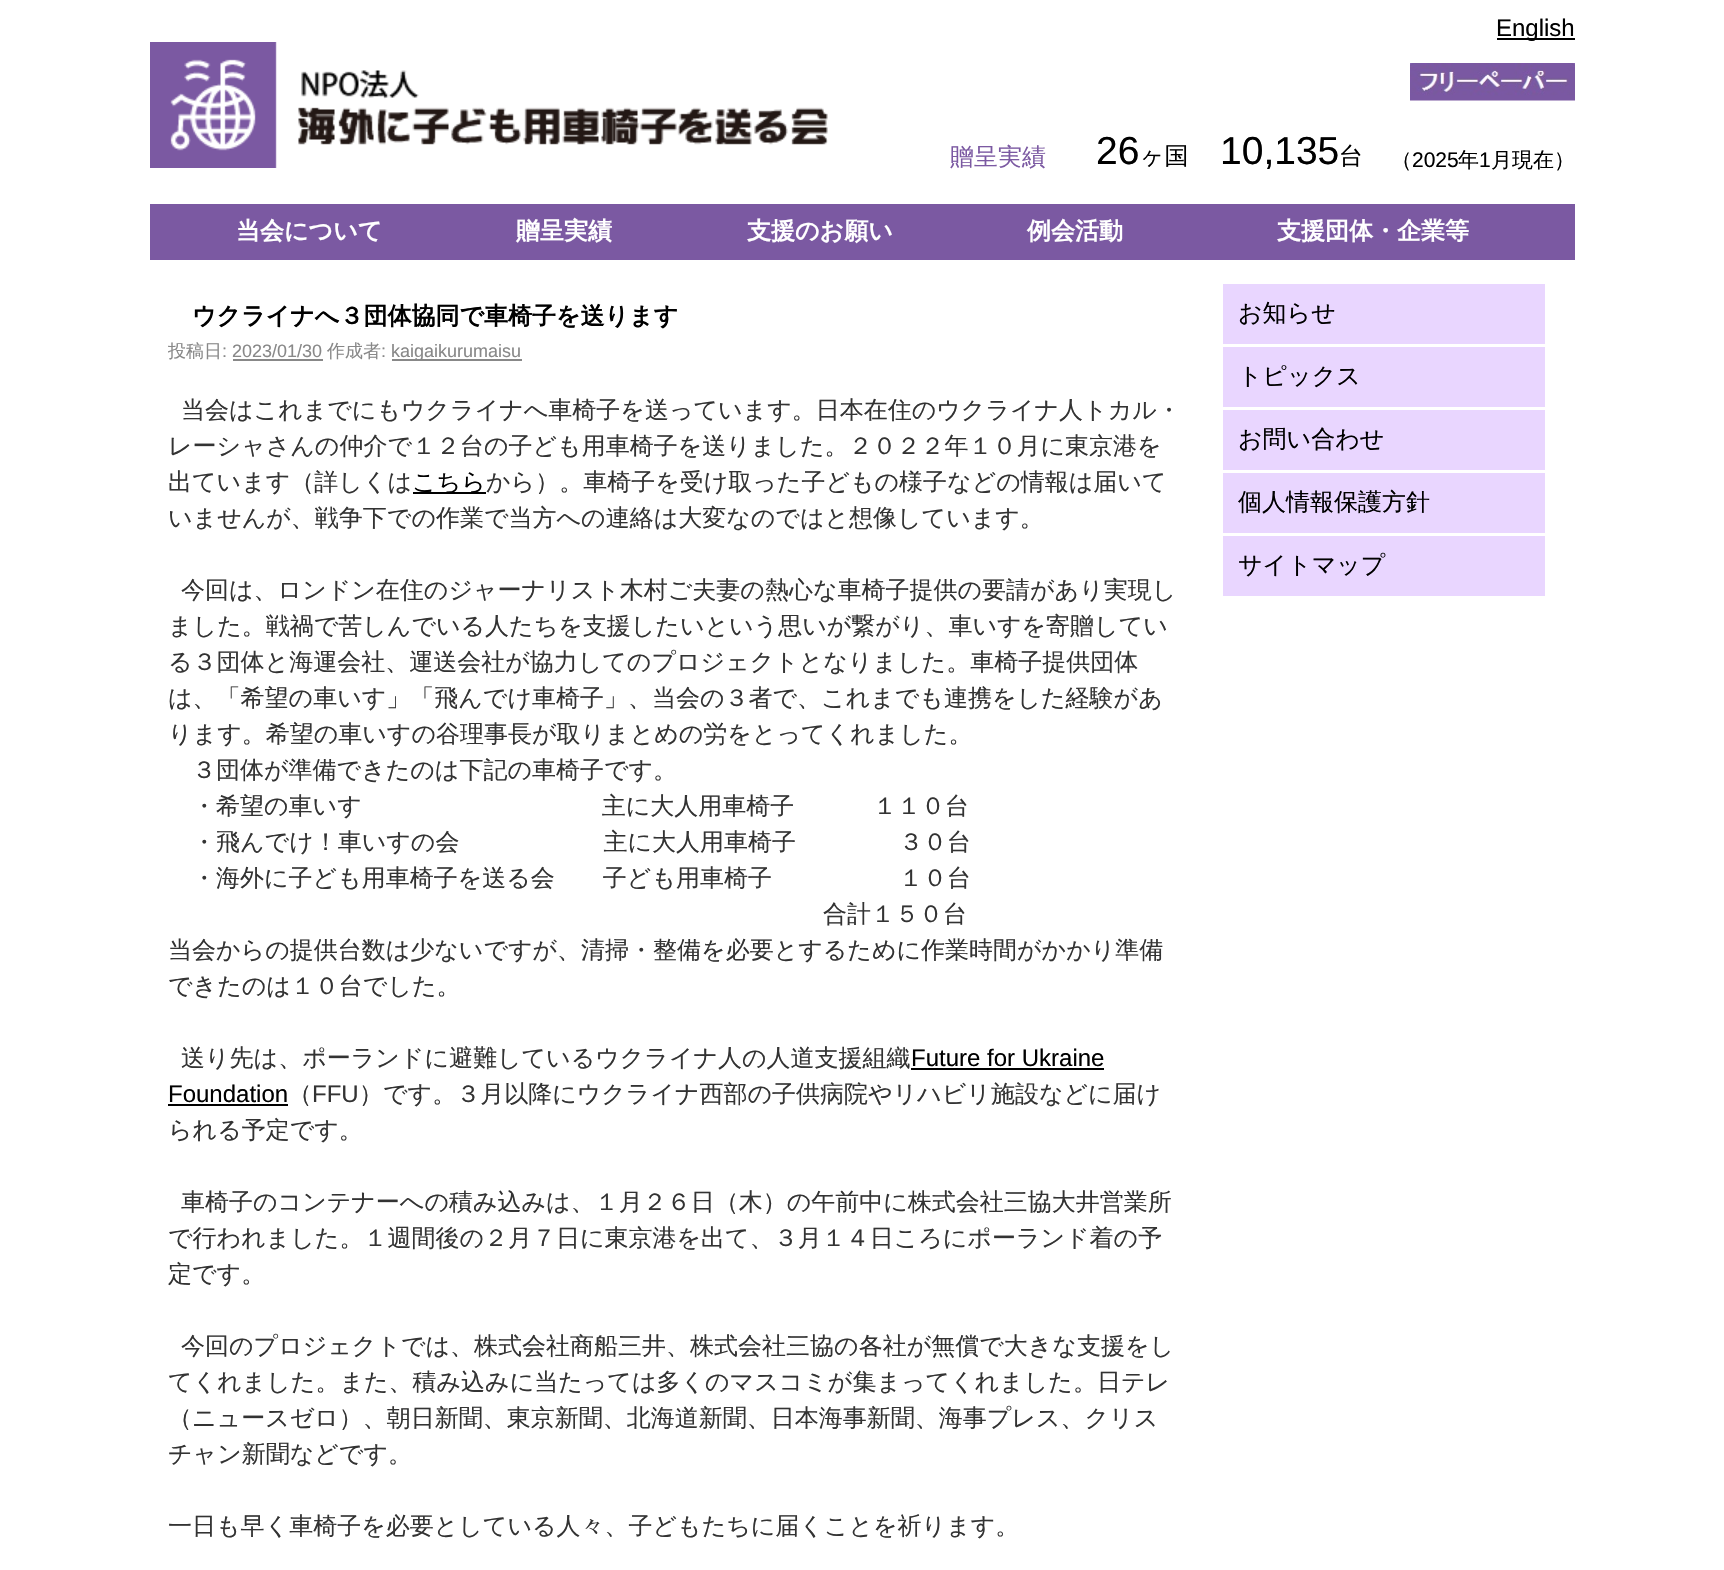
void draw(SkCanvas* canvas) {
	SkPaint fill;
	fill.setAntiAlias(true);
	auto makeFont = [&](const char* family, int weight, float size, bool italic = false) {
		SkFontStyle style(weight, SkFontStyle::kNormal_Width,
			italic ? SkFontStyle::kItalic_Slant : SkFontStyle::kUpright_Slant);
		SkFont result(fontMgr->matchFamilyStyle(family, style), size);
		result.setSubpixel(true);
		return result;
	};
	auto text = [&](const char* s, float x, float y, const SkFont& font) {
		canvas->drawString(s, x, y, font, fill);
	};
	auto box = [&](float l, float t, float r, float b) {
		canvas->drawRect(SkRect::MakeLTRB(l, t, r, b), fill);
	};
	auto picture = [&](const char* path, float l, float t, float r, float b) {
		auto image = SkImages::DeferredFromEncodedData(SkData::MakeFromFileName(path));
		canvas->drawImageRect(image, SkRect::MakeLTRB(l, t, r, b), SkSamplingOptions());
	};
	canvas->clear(0xFFFFFFFF);
	fill.setColor(0xFF000000);
	box(1497, 38, 1575, 40);
	picture("image0.png", 150, 42, 828, 168);
	picture("image1.png", 1410, 63, 1575, 101);
	fill.setColor(0xFF7B59A2);
	box(150, 204, 1575, 260);
	fill.setColor(0xFF888888);
	box(392, 359, 522, 361);
	box(233, 359, 323, 361);
	fill.setColor(0xFF000000);
	box(413, 492, 486, 494);
	box(911, 1068, 1104, 1070);
	box(168, 1104, 288, 1106);
	fill.setColor(0xFFE9D6FF);
	box(1223, 284, 1545, 344);
	box(1223, 347, 1545, 407);
	box(1223, 410, 1545, 470);
	box(1223, 473, 1545, 533);
	box(1223, 536, 1545, 596);
	auto font1 = makeFont("Liberation Sans", 400, 24);
	fill.setColor(0xFF000000);
	text("English", 1496, 36, font1);
	auto font2 = makeFont("WenQuanYi Zen Hei", 500, 24);
	fill.setColor(0xFF7B59A2);
	text("贈呈実績", 950, 165, font2);
	auto font3 = makeFont("Liberation Sans", 400, 39);
	fill.setColor(0xFF000000);
	text("26", 1096, 164, font3);
	text("ヶ国", 1140, 164, font2);
	text("10,135", 1220, 164, font3);
	text("台", 1339, 164, font2);
	auto font4 = makeFont("WenQuanYi Zen Hei", 500, 21);
	text("（", 1391, 167, font4);
	auto font5 = makeFont("Liberation Sans", 400, 21);
	text("2025", 1412, 167, font5);
	text("年", 1458, 167, font4);
	text("1", 1479, 167, font5);
	text("月現在）", 1491, 167, font4);
	auto font6 = makeFont("WenQuanYi Zen Hei", 700, 24);
	fill.setColor(0xFFFFFFFF);
	text("当会について", 236, 239, font6);
	text("贈呈実績", 516, 239, font6);
	text("支援のお願い", 747, 239, font6);
	text("例会活動", 1027, 239, font6);
	text("支援団体・企業等", 1277, 239, font6);
	fill.setColor(0xFF000000);
	text("ウクライナへ３団体協同で車椅子を送ります", 192, 324, font6);
	auto font7 = makeFont("WenQuanYi Zen Hei", 500, 18);
	fill.setColor(0xFF888888);
	text("投稿日", 168, 357, font7);
	auto font8 = makeFont("Liberation Sans", 400, 18);
	text(": 2023/01/30", 222, 357, font8);
	text("作成者", 327, 357, font7);
	text(":", 381, 357, font8);
	text("kaigaikurumaisu", 391, 357, font8);
	fill.setColor(0xFF333333);
	text("当会はこれまでにもウクライナへ車椅子を送っています。日本在住のウクライナ人トカル・", 181, 418, font2);
	text("レーシャさんの仲介で１２台の子ども用車椅子を送りました。２０２２年１０月に東京港を", 168, 454, font2);
	text("出ています（詳しくは", 168, 490, font2);
	fill.setColor(0xFF000000);
	text("こちら", 412, 490, font2);
	fill.setColor(0xFF333333);
	text("から）。車椅子を受け取った子どもの様子などの情報は届いて", 486, 490, font2);
	text("いませんが、戦争下での作業で当方への連絡は大変なのではと想像しています。", 168, 526, font2);
	text("今回は、ロンドン在住のジャーナリスト木村ご夫妻の熱心な車椅子提供の要請があり実現し", 181, 598, font2);
	text("ました。戦禍で苦しんでいる人たちを支援したいという思いが繋がり、車いすを寄贈してい", 168, 634, font2);
	text("る３団体と海運会社、運送会社が協力してのプロジェクトとなりました。車椅子提供団体", 168, 670, font2);
	text("は、「希望の車いす」「飛んでけ車椅子」、当会の３者で、これまでも連携をした経験があ", 168, 706, font2);
	text("ります。希望の車いすの谷理事長が取りまとめの労をとってくれました。", 168, 742, font2);
	text("３団体が準備できたのは下記の車椅子です。", 192, 778, font2);
	text("・希望の車いす　　　　　　　　　　主に大人用車椅子", 192, 814, font2);
	text("１１０台", 873, 814, font2);
	text("・飛んでけ！車いすの会　　　　　　主に大人用車椅子", 192, 850, font2);
	text("３０台", 899, 850, font2);
	text("・海外に子ども用車椅子を送る会　　子ども用車椅子", 192, 886, font2);
	text("１０台", 899, 886, font2);
	text("合計１５０台", 823, 922, font2);
	text("当会からの提供台数は少ないですが、清掃・整備を必要とするために作業時間がかかり準備", 168, 958, font2);
	text("できたのは１０台でした。", 168, 994, font2);
	text("送り先は、ポーランドに避難しているウクライナ人の人道支援組織", 181, 1066, font2);
	fill.setColor(0xFF000000);
	text("Future for Ukraine", 911, 1066, font1);
	text("Foundation", 168, 1102, font1);
	fill.setColor(0xFF333333);
	text("（", 288, 1102, font2);
	text("FFU", 312, 1102, font1);
	text("）です。３月以降にウクライナ西部の子供病院やリハビリ施設などに届け", 359, 1102, font2);
	text("られる予定です。", 168, 1138, font2);
	text("車椅子のコンテナーへの積み込みは、１月２６日（木）の午前中に株式会社三協大井営業所", 181, 1210, font2);
	text("で行われました。１週間後の２月７日に東京港を出て、３月１４日ころにポーランド着の予", 168, 1246, font2);
	text("定です。", 168, 1282, font2);
	text("今回のプロジェクトでは、株式会社商船三井、株式会社三協の各社が無償で大きな支援をし", 181, 1354, font2);
	text("てくれました。また、積み込みに当たっては多くのマスコミが集まってくれました。日テレ", 168, 1390, font2);
	text("（ニュースゼロ）、朝日新聞、東京新聞、北海道新聞、日本海事新聞、海事プレス、クリス", 168, 1426, font2);
	text("チャン新聞などです。", 168, 1462, font2);
	text("一日も早く車椅子を必要としている人々、子どもたちに届くことを祈ります。", 168, 1534, font2);
	fill.setColor(0xFF000000);
	text("お知らせ", 1238, 321, font2);
	text("トピックス", 1238, 384, font2);
	text("お問い合わせ", 1238, 447, font2);
	text("個人情報保護方針", 1238, 510, font2);
	text("サイトマップ", 1238, 573, font2);
}
